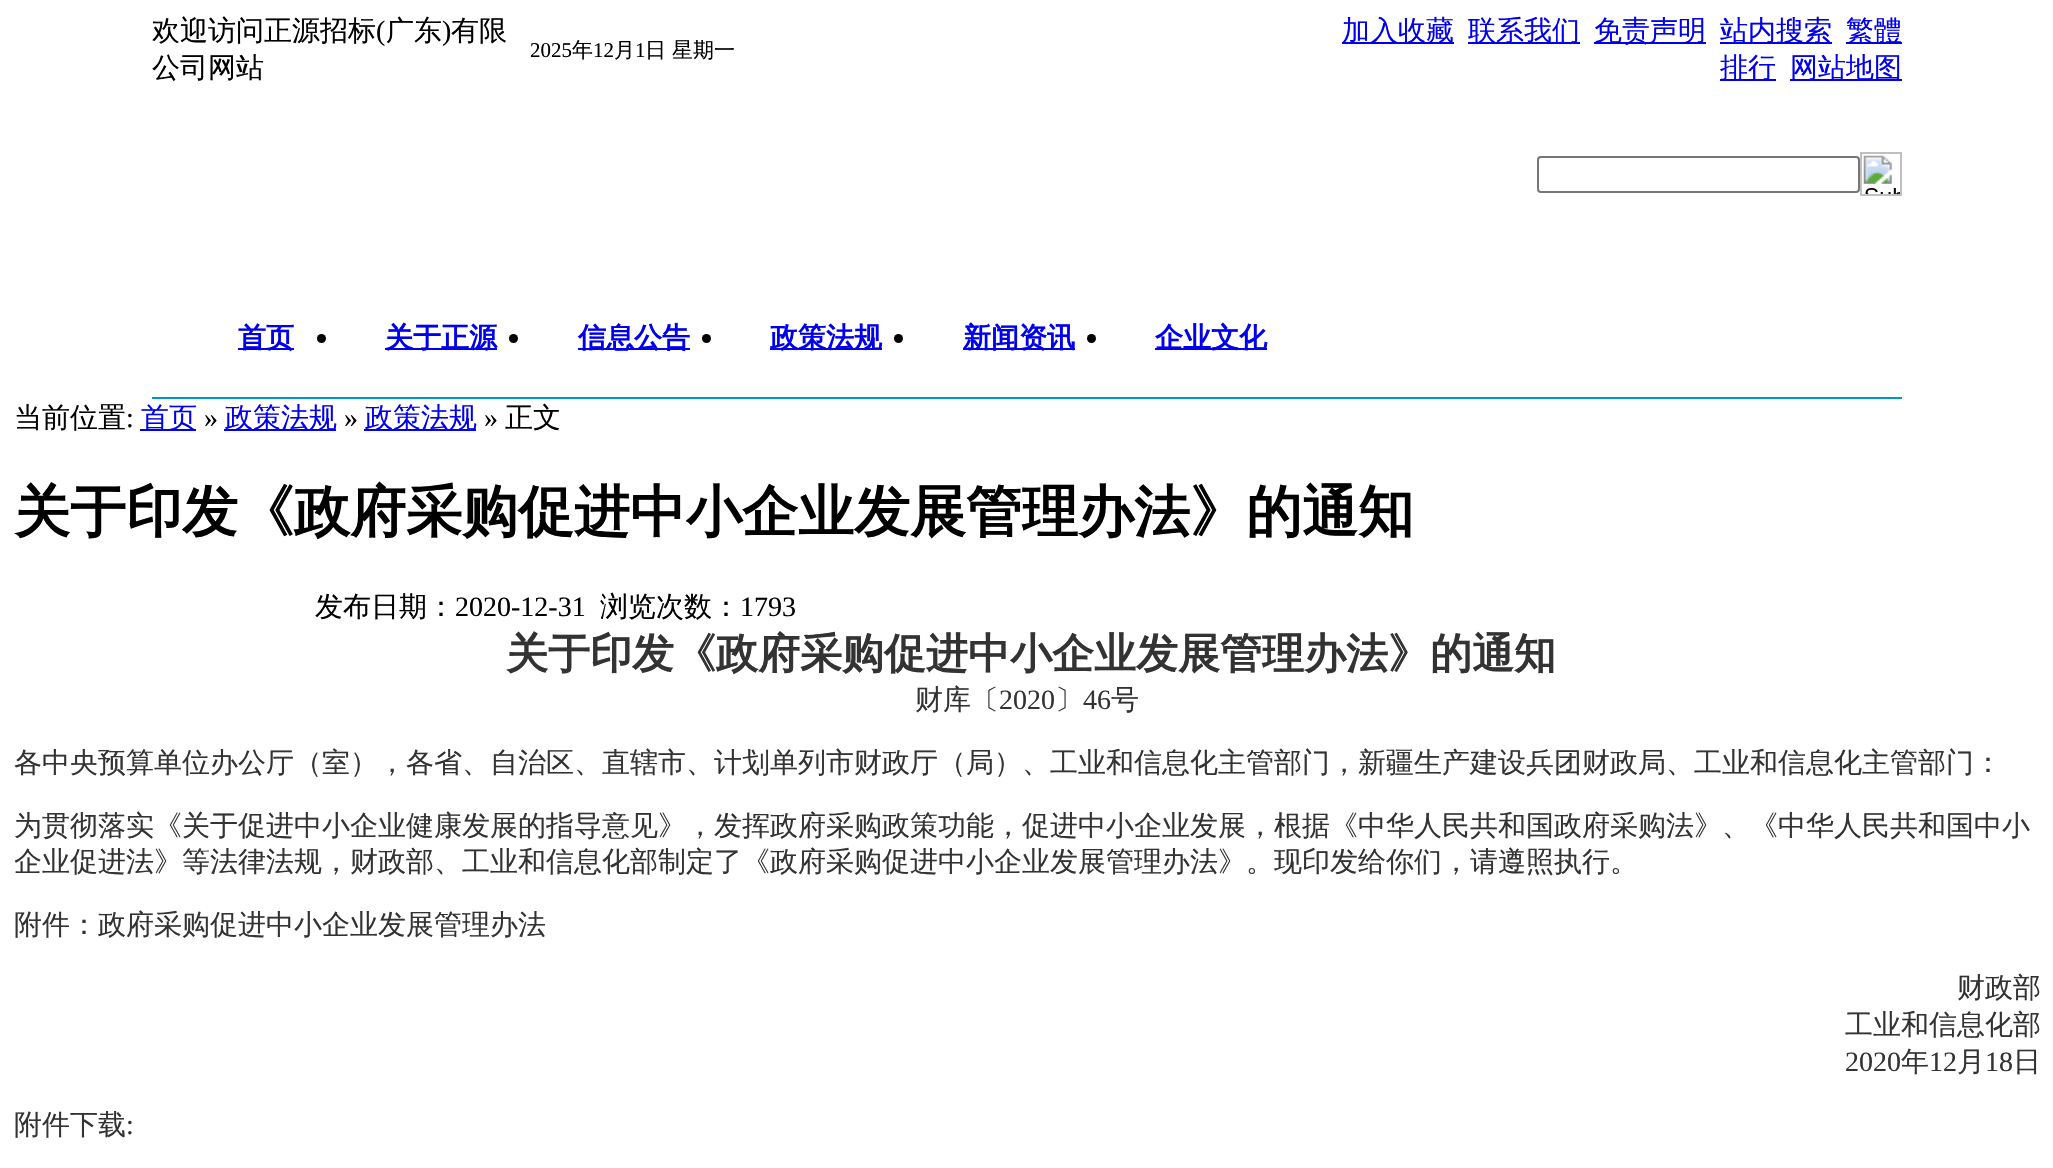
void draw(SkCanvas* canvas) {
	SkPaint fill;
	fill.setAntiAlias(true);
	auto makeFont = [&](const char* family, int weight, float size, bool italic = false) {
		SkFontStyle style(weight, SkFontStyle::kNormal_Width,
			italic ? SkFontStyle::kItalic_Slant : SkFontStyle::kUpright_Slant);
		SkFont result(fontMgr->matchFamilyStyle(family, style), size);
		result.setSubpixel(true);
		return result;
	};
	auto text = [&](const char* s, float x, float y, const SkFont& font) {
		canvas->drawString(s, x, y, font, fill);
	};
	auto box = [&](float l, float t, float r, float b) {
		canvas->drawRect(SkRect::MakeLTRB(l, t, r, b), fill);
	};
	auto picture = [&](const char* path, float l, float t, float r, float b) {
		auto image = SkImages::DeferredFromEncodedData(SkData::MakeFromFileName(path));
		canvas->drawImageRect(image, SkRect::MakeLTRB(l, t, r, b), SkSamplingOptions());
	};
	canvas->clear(0xFFFFFFFF);
	fill.setColor(0xFF0000EE);
	box(1342, 42, 1454, 44);
	box(1468, 42, 1580, 44);
	box(1594, 42, 1706, 44);
	box(1720, 42, 1832, 44);
	box(1846, 42, 1902, 44);
	box(1720, 79, 1776, 81);
	box(1790, 79, 1902, 81);
	fill.setStyle(SkPaint::kStroke_Style);
	fill.setStrokeWidth(2);
	fill.setColor(0xFF767676);
	canvas->drawRoundRect(SkRect::MakeLTRB(1538, 157, 1859, 192), 3, 3, fill);
	picture("image0.png", 1863, 152, 1903, 196);
	fill.setColor(0xFFC0C0C0);
	canvas->drawRect(SkRect::MakeLTRB(1861, 153, 1901, 195), fill);
	fill.setStyle(SkPaint::kFill_Style);
	fill.setColor(0xFF0000EE);
	box(238, 348, 294, 350);
	fill.setColor(0xFF000000);
	canvas->drawCircle(321.5f, 338.5f, 4.5f, fill);
	fill.setColor(0xFF0000EE);
	box(385, 348, 497, 350);
	fill.setColor(0xFF000000);
	canvas->drawCircle(513.5f, 338.5f, 4.5f, fill);
	fill.setColor(0xFF0000EE);
	box(578, 348, 690, 350);
	fill.setColor(0xFF000000);
	canvas->drawCircle(706.5f, 338.5f, 4.5f, fill);
	fill.setColor(0xFF0000EE);
	box(770, 348, 882, 350);
	fill.setColor(0xFF000000);
	canvas->drawCircle(898.5f, 338.5f, 4.5f, fill);
	fill.setColor(0xFF0000EE);
	box(963, 348, 1075, 350);
	fill.setColor(0xFF000000);
	canvas->drawCircle(1091.5f, 338.5f, 4.5f, fill);
	fill.setColor(0xFF0000EE);
	box(1155, 348, 1267, 350);
	fill.setColor(0xFF0095D0);
	box(152, 397, 1902, 399);
	fill.setColor(0xFF0000EE);
	box(140, 429, 196, 431);
	box(224, 429, 336, 431);
	box(364, 429, 476, 431);
	auto font1 = makeFont("WenQuanYi Zen Hei", 500, 28);
	fill.setColor(0xFF000000);
	text("欢迎访问正源招标", 152, 40, font1);
	auto font2 = makeFont("Liberation Serif", 400, 28);
	text("(", 376, 40, font2);
	text("广东", 386, 40, font1);
	text(")", 442, 40, font2);
	text("有限", 451, 40, font1);
	text("公司网站", 152, 77, font1);
	auto font3 = makeFont("Liberation Serif", 400, 21);
	text("2025", 530, 57, font3);
	auto font4 = makeFont("WenQuanYi Zen Hei", 500, 21);
	text("年", 572, 57, font4);
	text("12", 593, 57, font3);
	text("月", 614, 57, font4);
	text("1", 635, 57, font3);
	text("日", 645, 57, font4);
	text("星期一", 672, 57, font4);
	fill.setColor(0xFF0000EE);
	text("加入收藏", 1342, 40, font1);
	text("联系我们", 1468, 40, font1);
	text("免责声明", 1594, 40, font1);
	text("站内搜索", 1720, 40, font1);
	text("繁體", 1846, 40, font1);
	text("排行", 1720, 77, font1);
	text("网站地图", 1790, 77, font1);
	auto font5 = makeFont("WenQuanYi Zen Hei", 700, 28);
	text("首页", 238, 347, font5);
	text("关于正源", 385, 347, font5);
	text("信息公告", 578, 347, font5);
	text("政策法规", 770, 347, font5);
	text("新闻资讯", 963, 347, font5);
	text("企业文化", 1155, 347, font5);
	fill.setColor(0xFF000000);
	text("当前位置", 14, 427, font1);
	text(":", 126, 427, font2);
	fill.setColor(0xFF0000EE);
	text("首页", 141, 427, font1);
	fill.setColor(0xFF000000);
	text("»", 204, 427, font2);
	fill.setColor(0xFF0000EE);
	text("政策法规", 225, 427, font1);
	fill.setColor(0xFF000000);
	text("»", 344, 427, font2);
	fill.setColor(0xFF0000EE);
	text("政策法规", 365, 427, font1);
	fill.setColor(0xFF000000);
	text("»", 484, 427, font2);
	text("正文", 505, 427, font1);
	auto font6 = makeFont("WenQuanYi Zen Hei", 700, 56);
	text("关于印发《政府采购促进中小企业发展管理办法》的通知", 14, 531, font6);
	text("发布日期：", 315, 616, font1);
	text("2020-12-31", 455, 616, font2);
	text("浏览次数：", 600, 616, font1);
	text("1793", 740, 616, font2);
	auto font7 = makeFont("WenQuanYi Zen Hei", 700, 42);
	fill.setColor(0xFF333333);
	text("关于印发《政府采购促进中小企业发展管理办法》的通知", 506, 668, font7);
	text("财库〔", 915, 709, font1);
	text("2020", 999, 709, font2);
	text("〕", 1055, 709, font1);
	text("46", 1083, 709, font2);
	text("号", 1111, 709, font1);
	text("各中央预算单位办公厅（室），各省、自治区、直辖市、计划单列市财政厅（局）、工业和信息化主管部门，新疆生产建设兵团财政局、工业和信息化主管部门：", 14, 772, font1);
	text("为贯彻落实《关于促进中小企业健康发展的指导意见》，发挥政府采购政策功能，促进中小企业发展，根据《中华人民共和国政府采购法》、《中华人民共和国中小", 14, 835, font1);
	text("企业促进法》等法律法规，财政部、工业和信息化部制定了《政府采购促进中小企业发展管理办法》。现印发给你们，请遵照执行。", 14, 871, font1);
	text("附件：政府采购促进中小企业发展管理办法", 14, 934, font1);
	text("财政部", 1957, 997, font1);
	text("工业和信息化部", 1845, 1034, font1);
	text("2020", 1845, 1071, font2);
	text("年", 1901, 1071, font1);
	text("12", 1929, 1071, font2);
	text("月", 1957, 1071, font1);
	text("18", 1985, 1071, font2);
	text("日", 2013, 1071, font1);
	text("附件下载", 14, 1134, font1);
	text(":", 126, 1134, font2);
}
